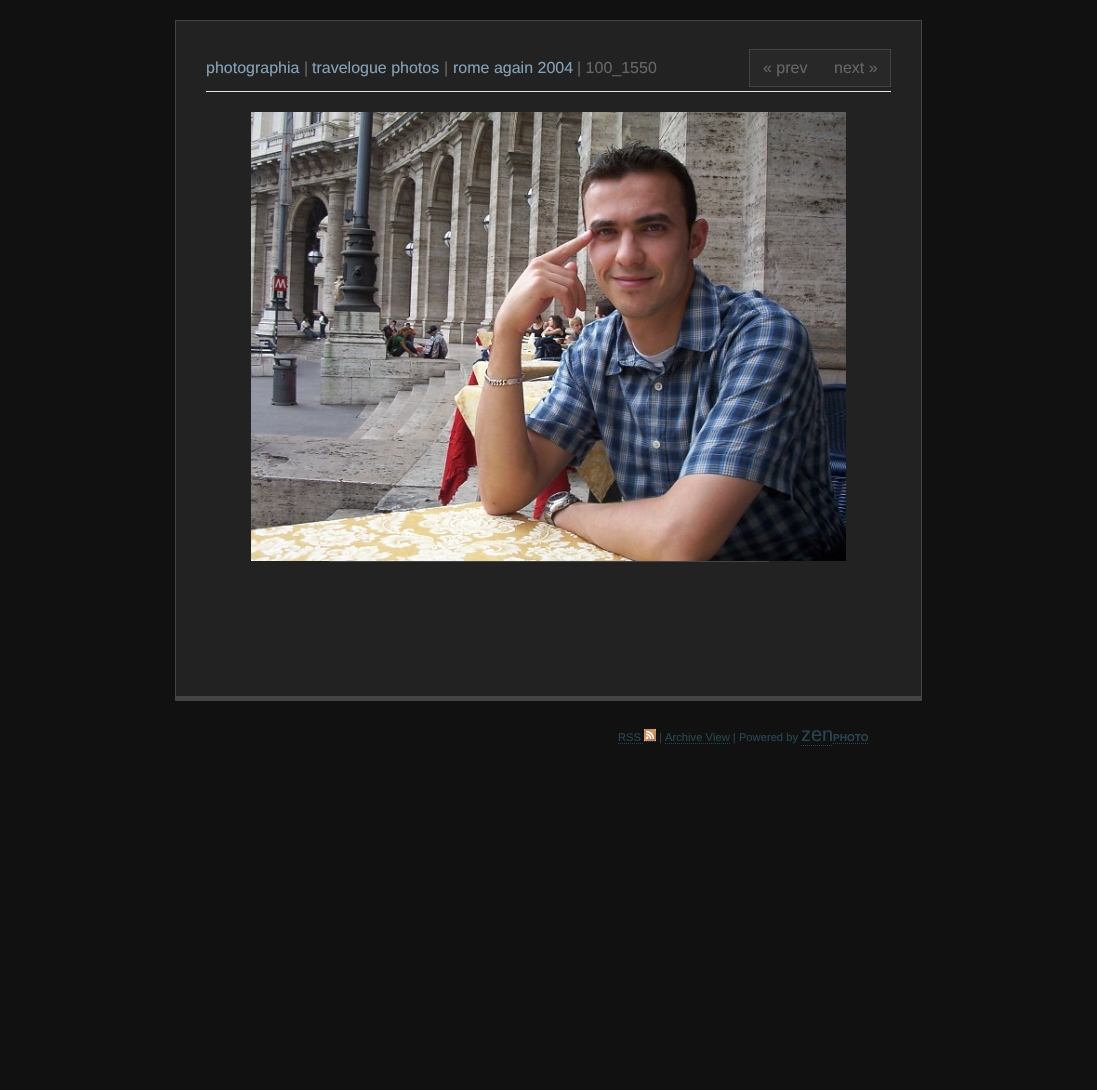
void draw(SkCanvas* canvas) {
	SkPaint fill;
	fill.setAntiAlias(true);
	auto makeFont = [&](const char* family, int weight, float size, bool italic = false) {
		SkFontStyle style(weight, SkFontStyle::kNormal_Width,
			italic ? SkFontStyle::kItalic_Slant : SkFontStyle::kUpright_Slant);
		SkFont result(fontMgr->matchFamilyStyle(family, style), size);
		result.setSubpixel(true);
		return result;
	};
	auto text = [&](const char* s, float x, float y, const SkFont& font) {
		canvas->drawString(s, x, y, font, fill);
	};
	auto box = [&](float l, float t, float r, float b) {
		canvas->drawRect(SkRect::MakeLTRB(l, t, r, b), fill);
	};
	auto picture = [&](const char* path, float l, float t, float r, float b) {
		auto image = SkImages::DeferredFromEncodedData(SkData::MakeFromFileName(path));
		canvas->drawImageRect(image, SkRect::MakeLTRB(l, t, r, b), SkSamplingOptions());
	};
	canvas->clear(0xFF111111);
	fill.setColor(0xFF222222);
	box(176, 21, 921, 696);
	fill.setColor(0xFF444444);
	box(175, 20, 922, 21);
	box(921, 20, 922, 701);
	box(175, 696, 922, 701);
	box(175, 20, 176, 701);
	fill.setColor(0xFFE6E6DF);
	box(206, 91, 891, 92);
	fill.setColor(0xFF282828);
	canvas->drawRect(SkRect::MakeLTRB(749.5f, 49.5f, 890.5f, 86.5f), fill);
	fill.setStyle(SkPaint::kStroke_Style);
	fill.setStrokeWidth(1);
	fill.setColor(0xFF444444);
	canvas->drawRect(SkRect::MakeLTRB(749.5f, 49.5f, 890.5f, 86.5f), fill);
	picture("image0.png", 251, 112, 846, 561);
	fill.setStyle(SkPaint::kFill_Style);
	box(329, 561, 769, 562);
	fill.setStyle(SkPaint::kStroke_Style);
	fill.setColor(0xFF294550);
	fill.setPathEffect(SkDashPathEffect::Make({{1, 1}}, 0));
	canvas->drawPath(SkPathBuilder().moveTo(618, 743.5f).lineTo(644, 743.5f).moveTo(644, 741.5f).lineTo(656, 741.5f).detach(), fill);
	fill.setPathEffect(nullptr);
	picture("image1.png", 644, 729, 656, 741);
	fill.setPathEffect(SkDashPathEffect::Make({{1, 1}}, 0));
	canvas->drawPath(SkPathBuilder().moveTo(801, 745.5f).lineTo(833, 745.5f).detach(), fill);
	fill.setPathEffect(nullptr);
	fill.setPathEffect(SkDashPathEffect::Make({{1, 1}}, 0));
	canvas->drawPath(SkPathBuilder().moveTo(833, 743.5f).lineTo(869, 743.5f).detach(), fill);
	fill.setPathEffect(nullptr);
	fill.setPathEffect(SkDashPathEffect::Make({{1, 1}}, 0));
	canvas->drawPath(SkPathBuilder().moveTo(665, 743.5f).lineTo(730, 743.5f).detach(), fill);
	fill.setPathEffect(nullptr);
	auto font1 = makeFont("Liberation Sans", 400, 16);
	fill.setStyle(SkPaint::kFill_Style);
	fill.setColor(0xFF86A1B6);
	text("photographia", 206, 73, font1);
	fill.setColor(0xFF666666);
	text("|", 304, 73, font1);
	fill.setColor(0xFF86A1B6);
	text("travelogue photos", 312, 73, font1);
	fill.setColor(0xFF666666);
	text("|", 444, 73, font1);
	fill.setColor(0xFF86A1B6);
	text("rome again 2004", 453, 73, font1);
	fill.setColor(0xFF666666);
	text("| 100_1550", 577, 73, font1);
	text("« prev", 763, 73, font1);
	text("next »", 834, 73, font1);
	auto font2 = makeFont("Liberation Sans", 400, 11.2f);
	fill.setColor(0xFF294550);
	text("RSS", 618, 741, font2);
	text("| Archive View | Powered by", 659, 741, font2);
	auto font3 = makeFont("Liberation Sans", 400, 20);
	text("zen", 801, 741, font3);
	auto font4 = makeFont("Liberation Sans", 700, 10);
	text("PHOTO", 833, 741, font4);
}
